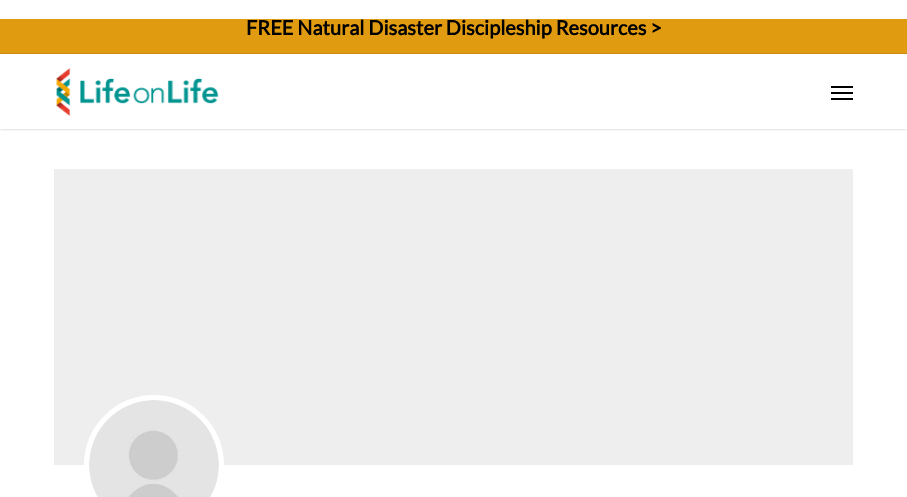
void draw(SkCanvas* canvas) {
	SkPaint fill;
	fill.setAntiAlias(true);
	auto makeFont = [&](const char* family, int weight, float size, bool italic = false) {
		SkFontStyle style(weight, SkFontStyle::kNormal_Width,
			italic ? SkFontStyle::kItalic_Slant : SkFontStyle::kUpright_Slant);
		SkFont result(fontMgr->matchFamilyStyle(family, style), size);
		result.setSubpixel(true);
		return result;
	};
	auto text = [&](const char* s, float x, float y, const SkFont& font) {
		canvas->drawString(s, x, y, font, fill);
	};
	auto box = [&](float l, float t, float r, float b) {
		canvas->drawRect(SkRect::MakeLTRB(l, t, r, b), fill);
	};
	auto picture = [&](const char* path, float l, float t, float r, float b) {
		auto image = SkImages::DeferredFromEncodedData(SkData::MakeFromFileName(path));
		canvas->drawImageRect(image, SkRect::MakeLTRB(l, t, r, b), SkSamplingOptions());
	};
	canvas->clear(0xFFFFFFFF);
	canvas->save();
	canvas->clipRect(SkRect::MakeLTRB(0, 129, 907, 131));
	fill.setColor(0x38000000);
	fill.setMaskFilter(SkMaskFilter::MakeBlur(kNormal_SkBlurStyle, 1.5f));
	canvas->drawRect(SkRect::MakeLTRB(0, 0, 907, 129), fill);
	fill.setMaskFilter(nullptr);
	canvas->restore();
	fill.setColor(0xFFE09B11);
	box(0, 19, 907, 53);
	fill.setColor(0xFFCA8C0F);
	box(0, 53, 907, 54);
	picture("image0.png", 56, 68, 219, 116);
	fill.setColor(0xFF000000);
	box(831, 86, 853, 88);
	box(831, 98, 853, 100);
	box(831, 92, 853, 94);
	fill.setColor(0xFFEEEEEE);
	box(54, 169, 853, 465);
	fill.setColor(0xFFFFFFFF);
	canvas->drawCircle(154, 465, 67.5f, fill);
	fill.setStyle(SkPaint::kStroke_Style);
	fill.setStrokeWidth(5);
	canvas->drawCircle(154, 465, 67.5f, fill);
	picture("image1.png", 89, 400, 219, 497);
	auto font1 = makeFont("Lato", 700, 20);
	fill.setStyle(SkPaint::kFill_Style);
	fill.setColor(0xFF000000);
	text("FREE Natural Disaster Discipleship Resources >", 246, 35, font1);
}
